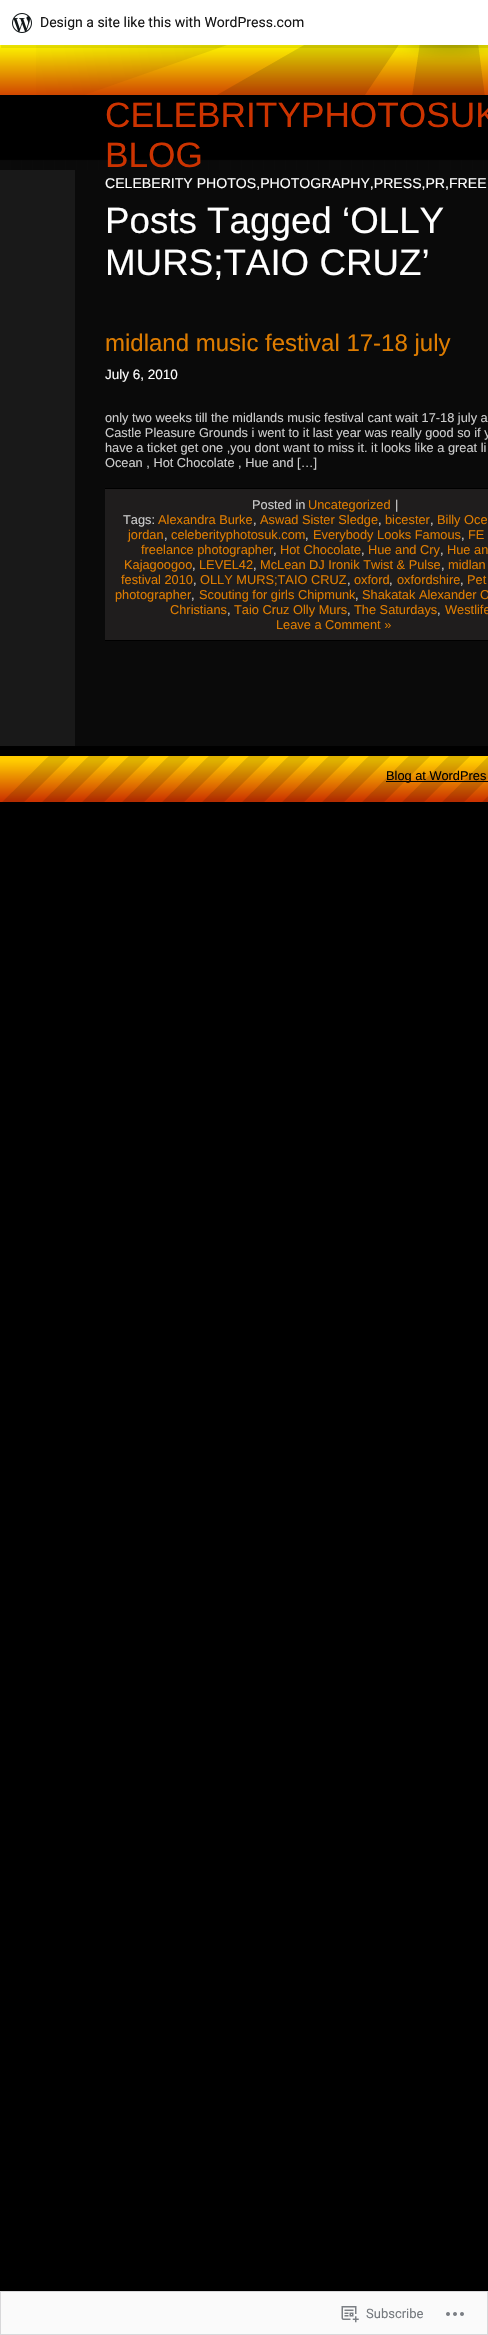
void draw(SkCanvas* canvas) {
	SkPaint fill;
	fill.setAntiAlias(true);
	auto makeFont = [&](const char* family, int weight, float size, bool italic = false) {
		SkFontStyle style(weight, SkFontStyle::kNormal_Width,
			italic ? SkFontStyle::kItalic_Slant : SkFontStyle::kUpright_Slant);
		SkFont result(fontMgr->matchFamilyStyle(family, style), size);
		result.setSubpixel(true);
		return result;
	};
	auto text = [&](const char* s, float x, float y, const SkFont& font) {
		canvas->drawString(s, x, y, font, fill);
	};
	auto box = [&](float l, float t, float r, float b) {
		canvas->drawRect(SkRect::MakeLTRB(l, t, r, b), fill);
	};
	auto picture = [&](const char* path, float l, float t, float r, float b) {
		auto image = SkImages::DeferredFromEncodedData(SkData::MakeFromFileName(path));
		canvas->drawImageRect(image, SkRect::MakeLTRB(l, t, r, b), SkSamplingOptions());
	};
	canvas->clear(0xFF000000);
	picture("image1.png", 0, 45, 488, 170);
	picture("image2.png", 36, 45, 488, 95);
	fill.setColor(0x14000000);
	canvas->drawPath(SkPathBuilder().moveTo(1, 45).lineTo(1, 48).lineTo(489, 48).lineTo(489, 3).lineTo(488, 3).lineTo(488, 45).close().detach(), fill);
	fill.setColor(0xFFFFFFFF);
	box(0, 0, 488, 45);
	picture("image0.png", 12, 13, 32, 33);
	fill.setColor(0xFF191919);
	box(0, 170, 75, 746);
	fill.setColor(0xFF0A0A0A);
	box(75, 170, 488, 746);
	fill.setColor(0xFF1F1D1D);
	box(105, 489, 488, 640);
	fill.setColor(0xFF000000);
	box(105, 488, 488, 489);
	box(105, 640, 488, 641);
	picture("image3.png", 0, 756, 2, 802);
	picture("image4.png", 2, 756, 488, 802);
	box(386, 781, 488, 782);
	fill.setColor(0xFFFAFAFA);
	canvas->drawRect(SkRect::MakeLTRB(0.5f, 2291.5f, 487.5f, 2334.5f), fill);
	fill.setStyle(SkPaint::kStroke_Style);
	fill.setStrokeWidth(1);
	fill.setColor(0xFFD8D8DA);
	canvas->drawRect(SkRect::MakeLTRB(0.5f, 2291.5f, 487.5f, 2334.5f), fill);
	picture("image5.png", 341, 2306, 359, 2323);
	picture("image6.png", 446, 2312, 464, 2316);
	auto font1 = makeFont("Roboto", 400, 14);
	fill.setStyle(SkPaint::kFill_Style);
	fill.setColor(0xFF171717);
	text("Design a site like this with WordPress.com", 40, 27, font1);
	auto font2 = makeFont("Liberation Sans", 400, 35.25f);
	fill.setColor(0xFFCC3300);
	text("CELEBRITYPHOTOSUK", 105, 127, font2);
	text("BLOG", 105, 167, font2);
	auto font3 = makeFont("Liberation Sans", 400, 14.1f);
	fill.setColor(0xFFFFFFFF);
	text("CELEBERITY PHOTOS,PHOTOGRAPHY,PRESS,PR,FREE", 105, 188, font3);
	auto font4 = makeFont("Liberation Sans", 400, 36.75f);
	text("Posts Tagged ‘OLLY", 105, 233, font4);
	text("MURS;TAIO CRUZ’", 105, 275, font4);
	auto font5 = makeFont("Liberation Sans", 400, 24);
	fill.setColor(0xFFDE7C00);
	text("midland music festival 17-18 july", 105, 351, font5);
	auto font6 = makeFont("Liberation Sans", 400, 13.5f);
	fill.setColor(0xFFFFFFFF);
	text("July 6, 2010", 105, 379, font6);
	auto font7 = makeFont("Liberation Sans", 400, 12.8f);
	fill.setColor(0xFFCCCCCC);
	text("only two weeks till the midlands music festival cant wait 17-18 july a", 105, 422, font7);
	text("Castle Pleasure Grounds i went to it last year was really good so if y", 105, 437, font7);
	text("have a ticket get one ,you dont want to miss it. it looks like a great li", 105, 452, font7);
	text("Ocean , Hot Chocolate , Hue and […]", 105, 467, font7);
	text("Posted in", 252, 509, font7);
	fill.setColor(0xFFDE7C00);
	text("Uncategorized", 308, 509, font7);
	fill.setColor(0xFFCCCCCC);
	text("|", 395, 509, font7);
	text("Tags:", 123, 524, font7);
	fill.setColor(0xFFDE7C00);
	text("Alexandra Burke", 158, 524, font7);
	fill.setColor(0xFFCCCCCC);
	text(",", 253, 524, font7);
	fill.setColor(0xFFDE7C00);
	text("Aswad Sister Sledge", 260, 524, font7);
	fill.setColor(0xFFCCCCCC);
	text(",", 378, 524, font7);
	fill.setColor(0xFFDE7C00);
	text("bicester", 385, 524, font7);
	fill.setColor(0xFFCCCCCC);
	text(",", 430, 524, font7);
	fill.setColor(0xFFDE7C00);
	text("Billy Oce", 437, 524, font7);
	text("jordan", 128, 539, font7);
	fill.setColor(0xFFCCCCCC);
	text(",", 164, 539, font7);
	fill.setColor(0xFFDE7C00);
	text("celeberityphotosuk.com", 171, 539, font7);
	fill.setColor(0xFFCCCCCC);
	text(",", 305, 539, font7);
	fill.setColor(0xFFDE7C00);
	text("Everybody Looks Famous", 313, 539, font7);
	fill.setColor(0xFFCCCCCC);
	text(",", 461, 539, font7);
	fill.setColor(0xFFDE7C00);
	text("FE", 468, 539, font7);
	text("freelance photographer", 141, 554, font7);
	fill.setColor(0xFFCCCCCC);
	text(",", 273, 554, font7);
	fill.setColor(0xFFDE7C00);
	text("Hot Chocolate", 280, 554, font7);
	fill.setColor(0xFFCCCCCC);
	text(",", 361, 554, font7);
	fill.setColor(0xFFDE7C00);
	text("Hue and Cry", 368, 554, font7);
	fill.setColor(0xFFCCCCCC);
	text(",", 440, 554, font7);
	fill.setColor(0xFFDE7C00);
	text("Hue an", 447, 554, font7);
	text("Kajagoogoo", 124, 569, font7);
	fill.setColor(0xFFCCCCCC);
	text(",", 192, 569, font7);
	fill.setColor(0xFFDE7C00);
	text("LEVEL42", 199, 569, font7);
	fill.setColor(0xFFCCCCCC);
	text(",", 253, 569, font7);
	fill.setColor(0xFFDE7C00);
	text("McLean DJ Ironik Twist & Pulse", 260, 569, font7);
	fill.setColor(0xFFCCCCCC);
	text(",", 441, 569, font7);
	fill.setColor(0xFFDE7C00);
	text("midlan", 448, 569, font7);
	text("festival 2010", 121, 584, font7);
	fill.setColor(0xFFCCCCCC);
	text(",", 193, 584, font7);
	fill.setColor(0xFFDE7C00);
	text("OLLY MURS;TAIO CRUZ", 200, 584, font7);
	fill.setColor(0xFFCCCCCC);
	text(",", 347, 584, font7);
	fill.setColor(0xFFDE7C00);
	text("oxford", 354, 584, font7);
	fill.setColor(0xFFCCCCCC);
	text(",", 389, 584, font7);
	fill.setColor(0xFFDE7C00);
	text("oxfordshire", 397, 584, font7);
	fill.setColor(0xFFCCCCCC);
	text(",", 460, 584, font7);
	fill.setColor(0xFFDE7C00);
	text("Pet", 467, 584, font7);
	text("photographer", 115, 599, font7);
	fill.setColor(0xFFCCCCCC);
	text(",", 191, 599, font7);
	fill.setColor(0xFFDE7C00);
	text("Scouting for girls Chipmunk", 199, 599, font7);
	fill.setColor(0xFFCCCCCC);
	text(",", 355, 599, font7);
	fill.setColor(0xFFDE7C00);
	text("Shakatak Alexander O", 362, 599, font7);
	text("Christians", 170, 614, font7);
	fill.setColor(0xFFCCCCCC);
	text(",", 227, 614, font7);
	fill.setColor(0xFFDE7C00);
	text("Taio Cruz Olly Murs", 234, 614, font7);
	fill.setColor(0xFFCCCCCC);
	text(",", 347, 614, font7);
	fill.setColor(0xFFDE7C00);
	text("The Saturdays", 354, 614, font7);
	fill.setColor(0xFFCCCCCC);
	text(",", 437, 614, font7);
	fill.setColor(0xFFDE7C00);
	text("Westlife", 445, 614, font7);
	text("Leave a Comment »", 276, 629, font7);
	fill.setColor(0xFF000000);
	text("Blog at WordPres", 386, 780, font7);
	auto font8 = makeFont("Roboto", 400, 13);
	fill.setColor(0xFF767A7F);
	text("Subscribe", 366, 2318, font8);
}
